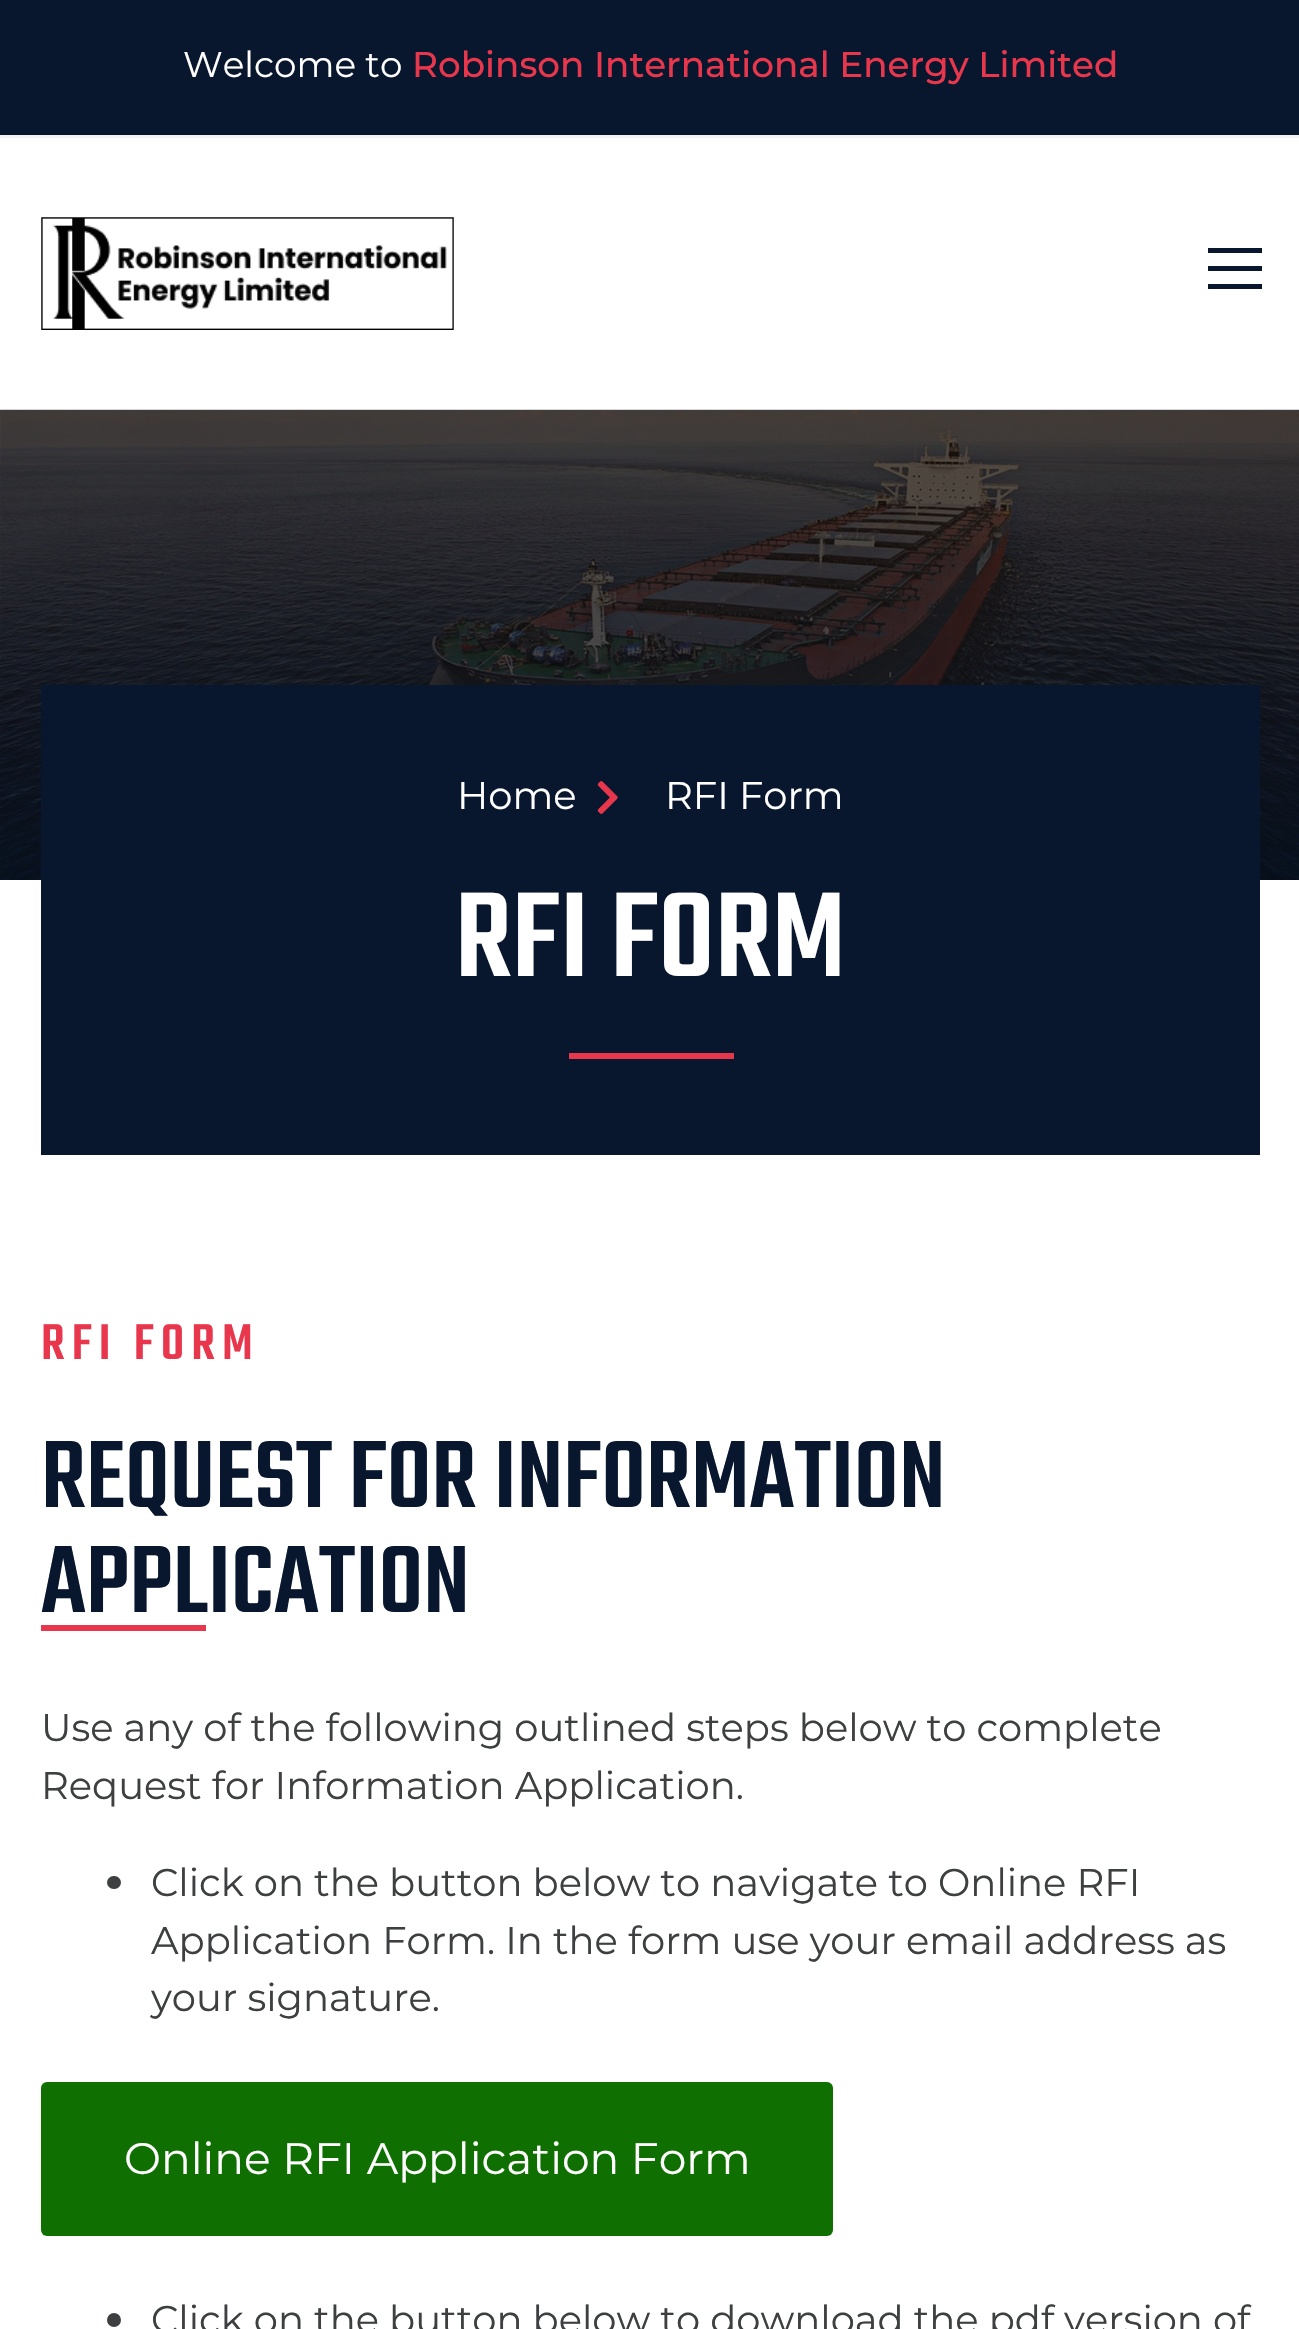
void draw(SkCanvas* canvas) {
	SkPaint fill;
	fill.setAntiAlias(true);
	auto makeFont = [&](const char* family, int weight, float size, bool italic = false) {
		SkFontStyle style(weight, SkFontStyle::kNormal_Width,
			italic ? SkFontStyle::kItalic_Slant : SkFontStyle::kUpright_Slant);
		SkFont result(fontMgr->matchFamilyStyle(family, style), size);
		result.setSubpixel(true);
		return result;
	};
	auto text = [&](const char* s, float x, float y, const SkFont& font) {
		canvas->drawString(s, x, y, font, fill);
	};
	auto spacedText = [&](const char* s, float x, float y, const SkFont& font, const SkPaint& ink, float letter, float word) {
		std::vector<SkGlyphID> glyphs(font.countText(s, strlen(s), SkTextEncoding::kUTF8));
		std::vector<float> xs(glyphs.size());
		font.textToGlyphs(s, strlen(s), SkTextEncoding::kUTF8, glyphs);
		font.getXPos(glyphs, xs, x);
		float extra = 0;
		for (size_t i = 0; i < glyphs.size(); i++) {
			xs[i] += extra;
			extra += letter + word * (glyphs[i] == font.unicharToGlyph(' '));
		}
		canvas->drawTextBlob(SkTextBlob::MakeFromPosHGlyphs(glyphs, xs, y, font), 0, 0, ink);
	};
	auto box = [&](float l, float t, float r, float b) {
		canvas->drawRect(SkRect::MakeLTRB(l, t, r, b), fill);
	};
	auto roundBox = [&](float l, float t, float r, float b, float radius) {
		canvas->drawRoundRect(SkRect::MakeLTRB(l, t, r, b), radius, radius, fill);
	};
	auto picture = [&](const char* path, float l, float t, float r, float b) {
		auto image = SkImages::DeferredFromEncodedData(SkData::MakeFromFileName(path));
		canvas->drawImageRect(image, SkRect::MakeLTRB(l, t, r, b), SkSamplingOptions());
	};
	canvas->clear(0xFFFFFFFF);
	fill.setColor(0xFF08172E);
	box(0, 0, 1299, 135);
	fill.setColor(0xFFF3F3F3);
	box(0, 135, 1299, 138);
	picture("image0.png", 41, 217, 454, 330);
	fill.setColor(0xFF08172E);
	canvas->drawPath(SkPathBuilder().moveTo(1208, 248).lineTo(1208, 253).lineTo(1262, 253).lineTo(1262, 248).close().moveTo(1208, 266).lineTo(1208, 271).lineTo(1262, 271).lineTo(1262, 266).close().moveTo(1208, 284).lineTo(1208, 289).lineTo(1262, 289).lineTo(1262, 284).close().detach(), fill);
	picture("image1.png", 0, 409, 1299, 880);
	box(41, 685, 1260, 1155);
	picture("image2.png", 597, 781, 618, 814);
	fill.setColor(0xFFE8374D);
	box(569, 1053, 734, 1059);
	box(41, 1625, 206, 1631);
	fill.setColor(0xFF3D3F40);
	roundBox(107, 1876, 121, 1889, 6.5f);
	fill.setColor(0xFF0F6F00);
	roundBox(41, 2082, 833, 2236, 6);
	fill.setColor(0xFF3D3F40);
	canvas->drawCircle(114, 2320, 7, fill);
	auto font1 = makeFont("Montserrat", 400, 35.75f);
	fill.setColor(0xFFFFFFFF);
	text("Welcome to", 183, 77, font1);
	auto font2 = makeFont("Montserrat", 500, 35.75f);
	fill.setColor(0xFFE8374D);
	text("Robinson International Energy Limited", 412, 77, font2);
	auto font3 = makeFont("Montserrat", 400, 38.5f);
	fill.setColor(0xFFFFFFFF);
	text("Home", 457, 809, font3);
	text("RFI Form", 665, 809, font3);
	auto font4 = makeFont("Teko", 500, 132);
	text("RFI FORM", 455, 976, font4);
	auto font5 = makeFont("Teko", 500, 55);
	fill.setColor(0xFFE8374D);
	spacedText("RFI FORM", 41, 1359, font5, fill, 7, 0);
	auto font6 = makeFont("Teko", 500, 104.5f);
	fill.setColor(0xFF08172E);
	text("REQUEST FOR INFORMATION", 41, 1507, font6);
	text("APPLICATION", 41, 1612, font6);
	fill.setColor(0xFF3D3F40);
	text("Use any of the following outlined steps below to complete", 41, 1741, font3);
	text("Request for Information Application.", 41, 1799, font3);
	text("Click on the button below to navigate to Online RFI", 151, 1896, font3);
	text("Application Form. In the form use your email address as", 151, 1954, font3);
	text("your signature.", 151, 2011, font3);
	auto font7 = makeFont("Montserrat", 400, 44);
	fill.setColor(0xFFFFFFFF);
	text("Online RFI Application Form", 124, 2174, font7);
	fill.setColor(0xFF3D3F40);
	text("Click on the button below to download the pdf version of", 151, 2333, font3);
}
